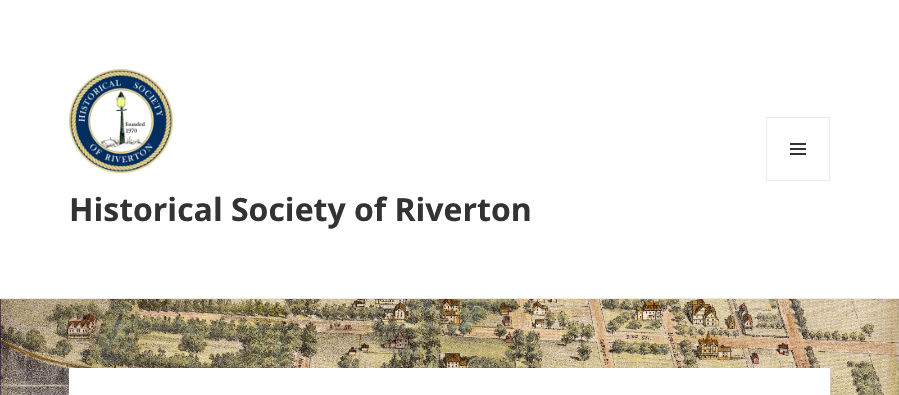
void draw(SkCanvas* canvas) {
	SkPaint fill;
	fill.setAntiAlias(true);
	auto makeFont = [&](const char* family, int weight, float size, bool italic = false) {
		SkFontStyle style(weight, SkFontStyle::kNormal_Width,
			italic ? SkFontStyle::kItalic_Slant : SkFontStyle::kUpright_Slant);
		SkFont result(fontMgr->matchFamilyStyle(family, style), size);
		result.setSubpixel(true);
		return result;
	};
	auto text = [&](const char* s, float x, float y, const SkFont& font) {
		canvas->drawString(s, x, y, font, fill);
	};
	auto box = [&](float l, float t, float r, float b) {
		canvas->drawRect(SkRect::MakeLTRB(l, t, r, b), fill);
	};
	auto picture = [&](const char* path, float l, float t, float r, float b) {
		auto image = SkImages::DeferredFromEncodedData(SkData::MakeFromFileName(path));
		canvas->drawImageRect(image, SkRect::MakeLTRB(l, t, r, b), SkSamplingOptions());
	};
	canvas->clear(0xFFFFFFFF);
	picture("image0.png", 0, 299, 899, 395);
	fill.setColor(0xFFEBEBEB);
	box(0, 298, 899, 299);
	picture("image1.png", 69, 69, 173, 173);
	fill.setStyle(SkPaint::kStroke_Style);
	fill.setStrokeWidth(1);
	canvas->drawRect(SkRect::MakeLTRB(766.5f, 117.5f, 829.5f, 180.5f), fill);
	picture("image2.png", 790, 143, 806, 155);
	fill.setStyle(SkPaint::kFill_Style);
	fill.setColor(0xFFFFFFFF);
	box(69, 368, 830, 395);
	auto font1 = makeFont("Noto Sans", 700, 32);
	fill.setColor(0xFF333333);
	text("Historical Society of Riverton", 69, 221, font1);
}
